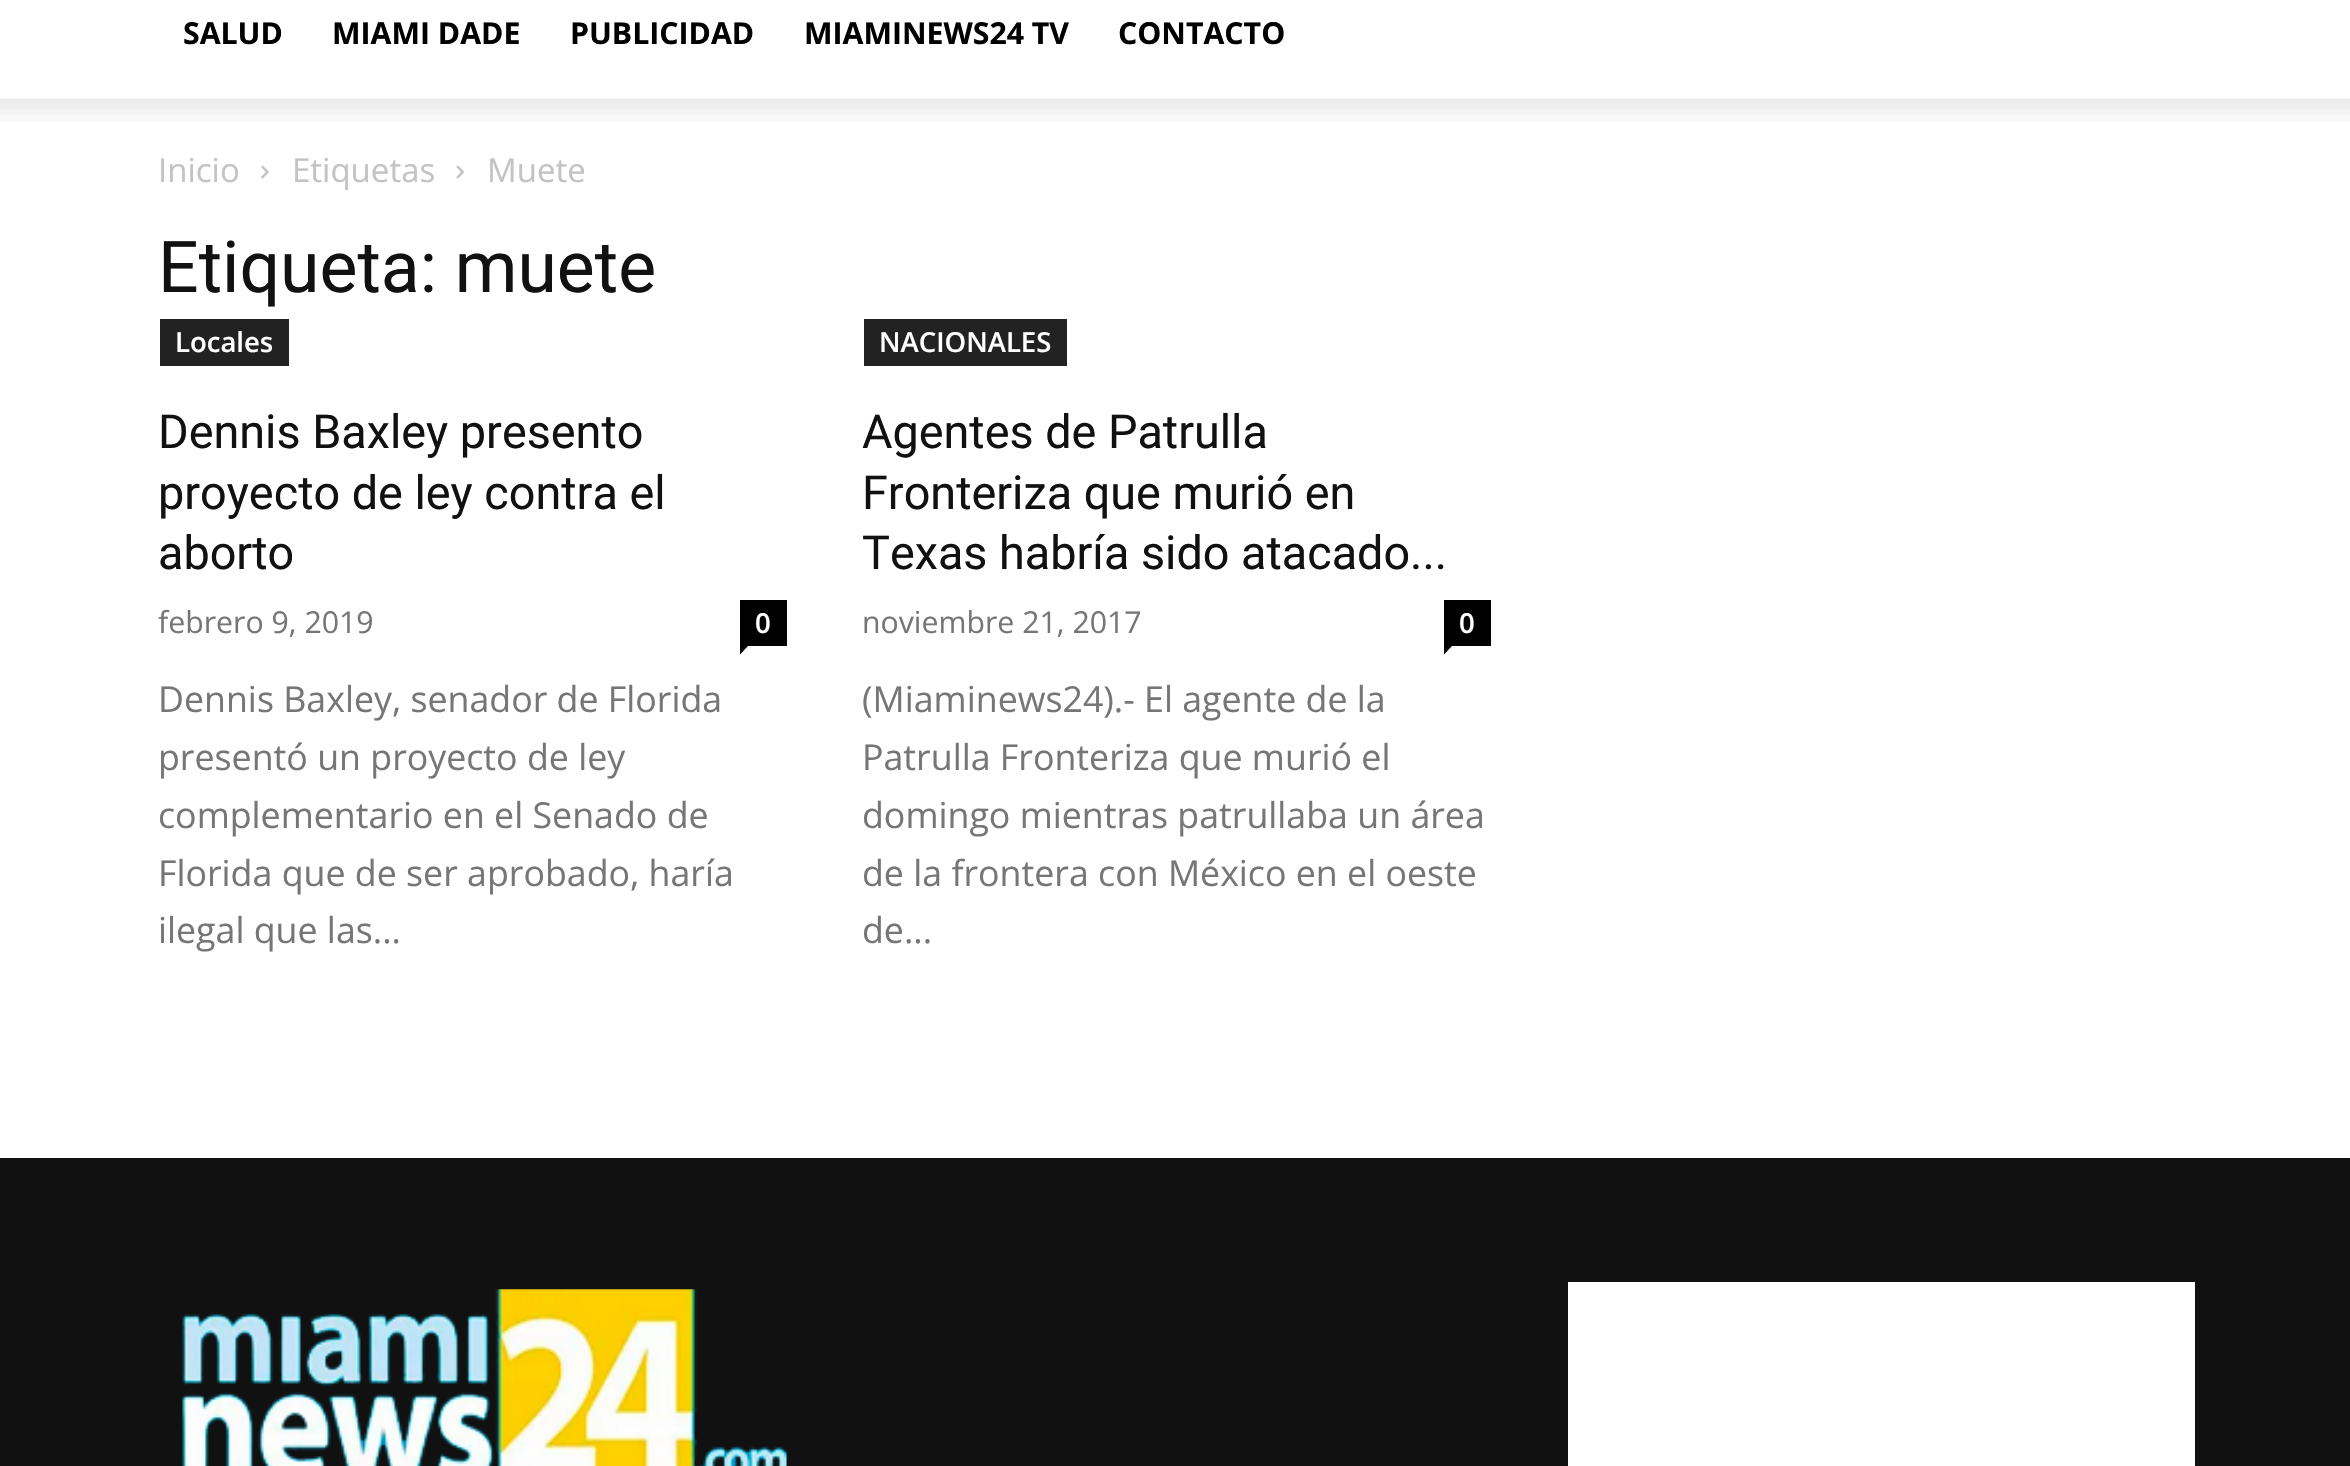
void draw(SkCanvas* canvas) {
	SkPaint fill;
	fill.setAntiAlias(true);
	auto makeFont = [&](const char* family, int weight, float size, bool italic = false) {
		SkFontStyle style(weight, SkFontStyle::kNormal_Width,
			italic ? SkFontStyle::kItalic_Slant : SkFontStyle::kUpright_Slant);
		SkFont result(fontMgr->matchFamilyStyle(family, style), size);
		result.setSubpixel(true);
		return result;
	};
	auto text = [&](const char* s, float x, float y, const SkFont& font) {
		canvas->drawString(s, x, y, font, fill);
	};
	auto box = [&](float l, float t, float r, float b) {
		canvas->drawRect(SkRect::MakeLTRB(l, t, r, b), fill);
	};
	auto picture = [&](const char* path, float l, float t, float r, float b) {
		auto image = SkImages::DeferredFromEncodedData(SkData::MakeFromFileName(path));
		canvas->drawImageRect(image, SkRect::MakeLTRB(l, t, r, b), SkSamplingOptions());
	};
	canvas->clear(0xFFFFFFFF);
	picture("image0.png", 0, 98, 2350, 122);
	picture("image1.png", 261, 165, 269, 179);
	picture("image2.png", 456, 165, 464, 179);
	fill.setColor(0xFF222222);
	box(160, 319, 289, 366);
	fill.setColor(0xFF000000);
	box(740, 600, 787, 646);
	canvas->drawPath(SkPathBuilder().moveTo(740, 646).lineTo(748, 646).lineTo(740, 654.5f).close().detach(), fill);
	fill.setColor(0xFF222222);
	box(864, 319, 1067, 366);
	fill.setColor(0xFF000000);
	box(1444, 600, 1491, 646);
	canvas->drawPath(SkPathBuilder().moveTo(1444, 646).lineTo(1452, 646).lineTo(1444, 654.5f).close().detach(), fill);
	fill.setColor(0xFF111111);
	box(0, 1158, 2350, 1466);
	picture("image3.png", 182, 1289, 787, 1466);
	fill.setColor(0xFFFFFFFF);
	box(1568, 1282, 2195, 1466);
	auto font1 = makeFont("Open Sans", 700, 30.25f);
	fill.setColor(0xFF000000);
	text("SALUD", 183, 44, font1);
	text("MIAMI DADE", 332, 44, font1);
	text("PUBLICIDAD", 570, 44, font1);
	text("MIAMINEWS24 TV", 804, 44, font1);
	text("CONTACTO", 1118, 44, font1);
	auto font2 = makeFont("Open Sans", 400, 33);
	fill.setColor(0xFFC3C3C3);
	text("Inicio", 158, 182, font2);
	text("Etiquetas", 292, 182, font2);
	text("Muete", 487, 182, font2);
	auto font3 = makeFont("Roboto", 400, 71.5f);
	fill.setColor(0xFF111111);
	text("Etiqueta: muete", 158, 292, font3);
	auto font4 = makeFont("Open Sans", 600, 27.5f);
	fill.setColor(0xFFFFFFFF);
	text("Locales", 175, 352, font4);
	auto font5 = makeFont("Roboto", 400, 46.75f);
	fill.setColor(0xFF111111);
	text("Dennis Baxley presento", 158, 448, font5);
	text("proyecto de ley contra el", 158, 509, font5);
	text("aborto", 158, 569, font5);
	auto font6 = makeFont("Open Sans", 400, 30.25f);
	fill.setColor(0xFF767676);
	text("febrero 9, 2019", 158, 633, font6);
	fill.setColor(0xFFFFFFFF);
	text("0", 755, 633, font4);
	auto font7 = makeFont("Open Sans", 400, 35.75f);
	fill.setColor(0xFF767676);
	text("Dennis Baxley, senador de Florida", 158, 712, font7);
	text("presentó un proyecto de ley", 158, 770, font7);
	text("complementario en el Senado de", 158, 828, font7);
	text("Florida que de ser aprobado, haría", 158, 886, font7);
	text("ilegal que las...", 158, 943, font7);
	fill.setColor(0xFFFFFFFF);
	text("NACIONALES", 879, 352, font4);
	fill.setColor(0xFF111111);
	text("Agentes de Patrulla", 862, 448, font5);
	text("Fronteriza que murió en", 862, 509, font5);
	text("Texas habría sido atacado...", 862, 569, font5);
	fill.setColor(0xFF767676);
	text("noviembre 21, 2017", 862, 633, font6);
	fill.setColor(0xFFFFFFFF);
	text("0", 1459, 633, font4);
	fill.setColor(0xFF767676);
	text("(Miaminews24).- El agente de la", 862, 712, font7);
	text("Patrulla Fronteriza que murió el", 862, 770, font7);
	text("domingo mientras patrullaba un área", 862, 828, font7);
	text("de la frontera con México en el oeste", 862, 886, font7);
	text("de...", 862, 943, font7);
}
